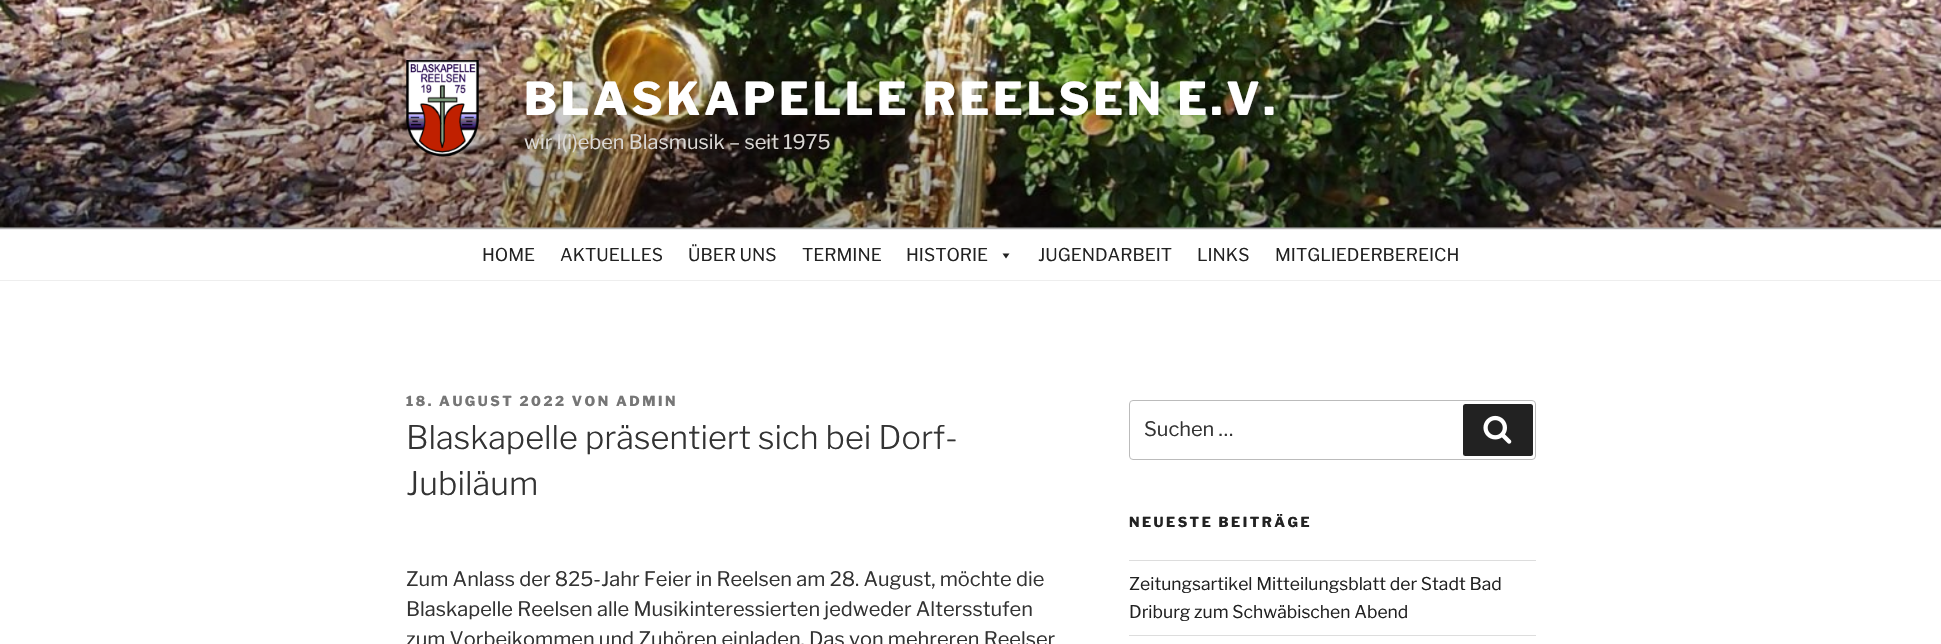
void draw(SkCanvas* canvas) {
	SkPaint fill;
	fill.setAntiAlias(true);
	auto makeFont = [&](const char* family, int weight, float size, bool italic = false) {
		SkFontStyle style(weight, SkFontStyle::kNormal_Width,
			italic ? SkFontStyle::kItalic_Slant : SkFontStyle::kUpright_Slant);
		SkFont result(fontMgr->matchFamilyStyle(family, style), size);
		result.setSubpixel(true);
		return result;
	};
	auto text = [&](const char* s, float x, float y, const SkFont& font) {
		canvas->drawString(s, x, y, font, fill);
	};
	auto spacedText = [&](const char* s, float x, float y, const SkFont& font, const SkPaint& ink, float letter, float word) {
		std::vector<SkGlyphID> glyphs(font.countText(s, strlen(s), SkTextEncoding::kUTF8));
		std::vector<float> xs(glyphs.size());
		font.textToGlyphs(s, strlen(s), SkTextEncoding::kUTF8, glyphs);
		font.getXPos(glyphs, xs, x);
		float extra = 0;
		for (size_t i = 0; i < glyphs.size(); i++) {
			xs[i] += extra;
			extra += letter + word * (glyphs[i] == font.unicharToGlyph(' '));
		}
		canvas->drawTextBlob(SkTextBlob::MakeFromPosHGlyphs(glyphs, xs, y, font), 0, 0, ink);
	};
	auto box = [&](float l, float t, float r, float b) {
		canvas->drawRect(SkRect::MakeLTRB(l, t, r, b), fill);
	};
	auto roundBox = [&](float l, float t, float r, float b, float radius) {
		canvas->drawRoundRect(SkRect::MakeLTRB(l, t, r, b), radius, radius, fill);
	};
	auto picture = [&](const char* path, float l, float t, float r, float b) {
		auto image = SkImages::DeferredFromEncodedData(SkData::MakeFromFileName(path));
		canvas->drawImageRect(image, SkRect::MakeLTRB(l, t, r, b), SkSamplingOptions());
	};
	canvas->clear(0xFFFFFFFF);
	fill.setColor(0xFFFAFAFA);
	box(0, 227, 1941, 229);
	picture("image0.png", 0, 0, 1941, 228);
	{
		const SkColor colors[] = {0x00000000, 0x4D000000, 0x4D000000};
		const float stops[] = {0, 0.75f, 1};
		const SkPoint ends[] = {{971, 0}, {971, 229}};
		fill.setShader(SkGradientShader::MakeLinear(ends, colors, stops, 3, SkTileMode::kClamp));
		fill.setAlpha(255);
	}
	box(0, 12, 1941, 229);
	picture("image1.png", 406, 60, 479, 157);
	fill.setShader(nullptr);
	fill.setColor(0xFFEEEEEE);
	box(0, 229, 1941, 230);
	box(0, 280, 1941, 281);
	fill.setColor(0xFF222222);
	canvas->drawPath(SkPathBuilder().moveTo(1009.5f, 253.5f).lineTo(1006, 258.5f).lineTo(1002.5f, 253.5f).close().detach(), fill);
	fill.setStyle(SkPaint::kStroke_Style);
	fill.setStrokeWidth(1);
	fill.setColor(0xFFBBBBBB);
	canvas->drawRoundRect(SkRect::MakeLTRB(1129.5f, 400.5f, 1535.5f, 459.5f), 3.5f, 3.5f, fill);
	fill.setStyle(SkPaint::kFill_Style);
	fill.setColor(0xFF222222);
	roundBox(1463, 404, 1533, 456, 2.5f);
	picture("image2.png", 1483, 415, 1512, 444);
	fill.setColor(0xFFDDDDDD);
	box(1129, 560, 1536, 561);
	box(1129, 635, 1536, 636);
	auto font1 = makeFont("Libre Franklin", 100, 45);
	fill.setColor(0xFFFFFFFF);
	spacedText("BLASKAPELLE REELSEN E.V.", 524, 115, font1, fill, 3.6f, 0);
	auto font2 = makeFont("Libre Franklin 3", 100, 20);
	fill.setColor(0xFFDBD8D5);
	text("wir l(i)eben Blasmusik – seit 1975", 524, 149, font2);
	auto font3 = makeFont("Libre Franklin 3", 100, 17.5f);
	fill.setColor(0xFF222222);
	text("HOME", 482, 261, font3);
	text("AKTUELLES", 560, 261, font3);
	text("ÜBER UNS", 688, 261, font3);
	text("TERMINE", 802, 261, font3);
	text("HISTORIE", 906, 261, font3);
	text("JUGENDARBEIT", 1038, 261, font3);
	text("LINKS", 1197, 261, font3);
	text("MITGLIEDERBEREICH", 1275, 261, font3);
	auto font4 = makeFont("Libre Franklin", 100, 13.75f);
	fill.setColor(0xFF767676);
	spacedText("18. AUGUST 2022 VON ADMIN", 406, 406, font4, fill, 2.5f, 0);
	auto font5 = makeFont("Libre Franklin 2", 100, 32.5f);
	fill.setColor(0xFF333333);
	text("Blaskapelle präsentiert sich bei Dorf-", 406, 449, font5);
	text("Jubiläum", 406, 495, font5);
	text("Zum Anlass der 825-Jahr Feier in Reelsen am 28. August, möchte die", 406, 586, font2);
	text("Blaskapelle Reelsen alle Musikinteressierten jedweder Altersstufen", 406, 616, font2);
	text("zum Vorbeikommen und Zuhören einladen. Das von mehreren Reelser", 406, 646, font2);
	text("Suchen …", 1144, 436, font2);
	fill.setColor(0xFF222222);
	spacedText("NEUESTE BEITRÄGE", 1129, 527, font4, fill, 2.5f, 0);
	text("Zeitungsartikel Mitteilungsblatt der Stadt Bad", 1129, 590, font3);
	text("Driburg zum Schwäbischen Abend", 1129, 618, font3);
}
